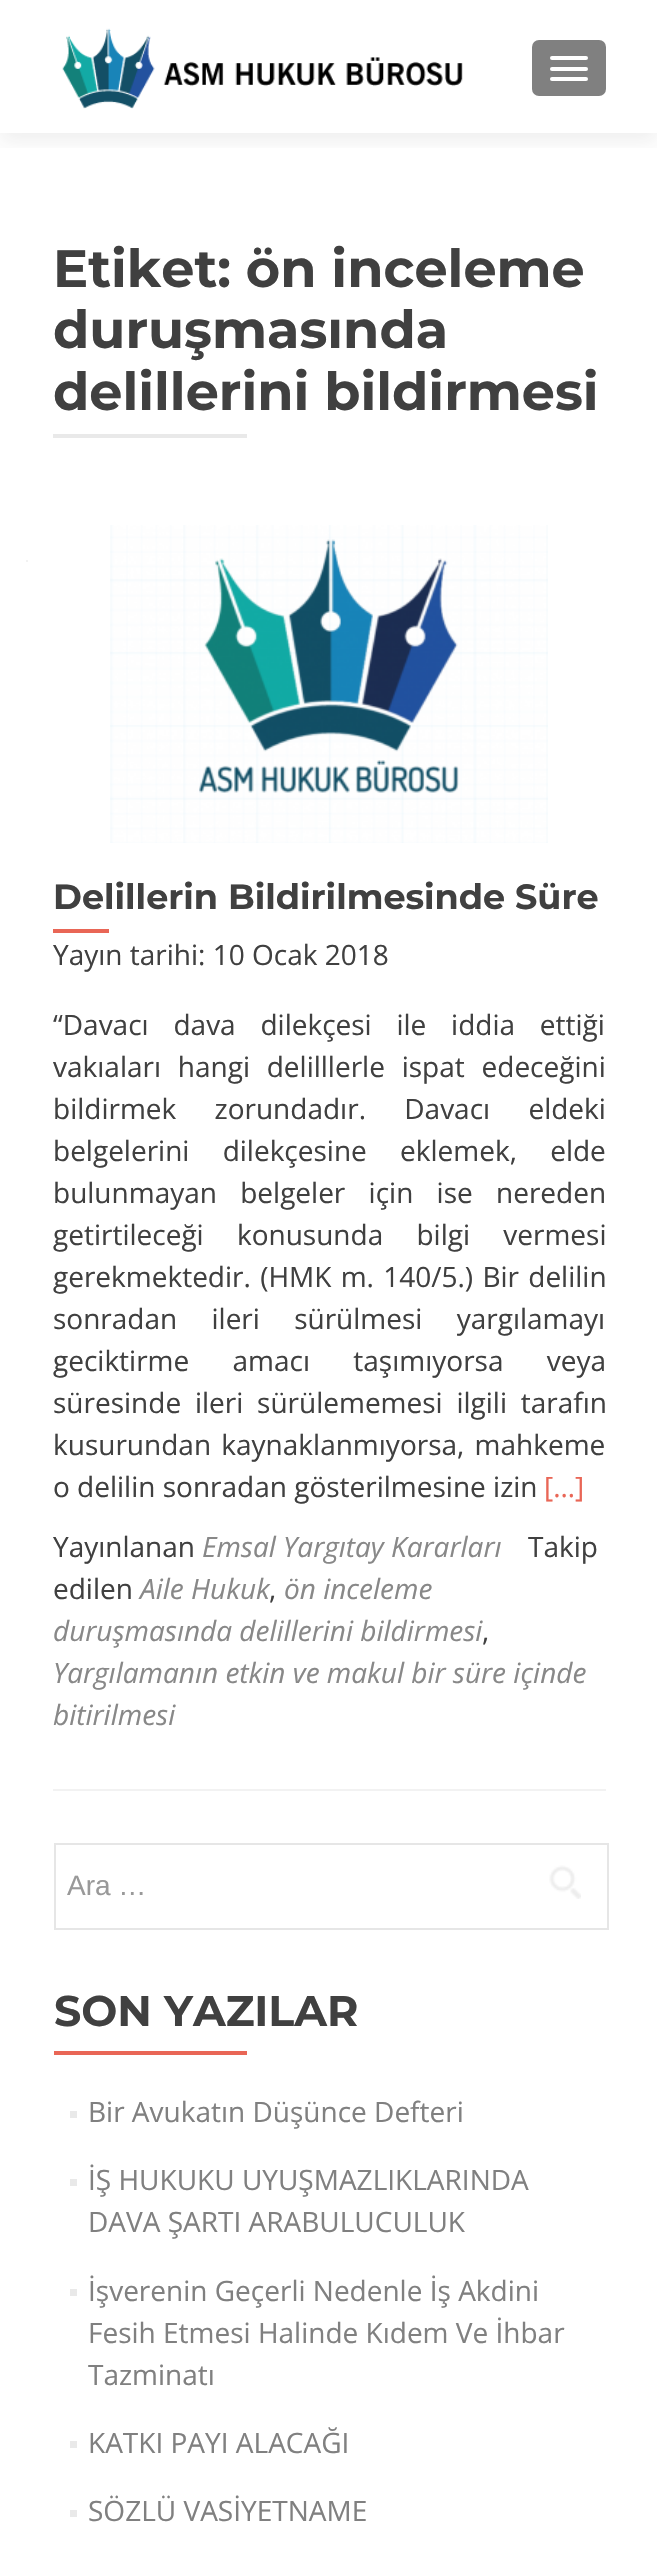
void draw(SkCanvas* canvas) {
	SkPaint fill;
	fill.setAntiAlias(true);
	auto makeFont = [&](const char* family, int weight, float size, bool italic = false) {
		SkFontStyle style(weight, SkFontStyle::kNormal_Width,
			italic ? SkFontStyle::kItalic_Slant : SkFontStyle::kUpright_Slant);
		SkFont result(fontMgr->matchFamilyStyle(family, style), size);
		result.setSubpixel(true);
		return result;
	};
	auto text = [&](const char* s, float x, float y, const SkFont& font) {
		canvas->drawString(s, x, y, font, fill);
	};
	auto spacedText = [&](const char* s, float x, float y, const SkFont& font, const SkPaint& ink, float letter, float word) {
		std::vector<SkGlyphID> glyphs(font.countText(s, strlen(s), SkTextEncoding::kUTF8));
		std::vector<float> xs(glyphs.size());
		font.textToGlyphs(s, strlen(s), SkTextEncoding::kUTF8, glyphs);
		font.getXPos(glyphs, xs, x);
		float extra = 0;
		for (size_t i = 0; i < glyphs.size(); i++) {
			xs[i] += extra;
			extra += letter + word * (glyphs[i] == font.unicharToGlyph(' '));
		}
		canvas->drawTextBlob(SkTextBlob::MakeFromPosHGlyphs(glyphs, xs, y, font), 0, 0, ink);
	};
	auto box = [&](float l, float t, float r, float b) {
		canvas->drawRect(SkRect::MakeLTRB(l, t, r, b), fill);
	};
	auto roundBox = [&](float l, float t, float r, float b, float radius) {
		canvas->drawRoundRect(SkRect::MakeLTRB(l, t, r, b), radius, radius, fill);
	};
	auto picture = [&](const char* path, float l, float t, float r, float b) {
		auto image = SkImages::DeferredFromEncodedData(SkData::MakeFromFileName(path));
		canvas->drawImageRect(image, SkRect::MakeLTRB(l, t, r, b), SkSamplingOptions());
	};
	canvas->clear(0xFFFFFFFF);
	canvas->save();
	canvas->clipRect(SkRect::MakeLTRB(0, 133, 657, 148));
	fill.setColor(0x14323232);
	fill.setMaskFilter(SkMaskFilter::MakeBlur(kNormal_SkBlurStyle, 9.5f));
	canvas->drawRect(SkRect::MakeLTRB(0, 9, 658, 142), fill);
	fill.setMaskFilter(nullptr);
	canvas->restore();
	picture("image0.png", 62, 28, 463, 109);
	fill.setColor(0xFF808080);
	roundBox(532, 40, 606, 96, 7);
	fill.setColor(0xFFFFFFFF);
	roundBox(550, 56, 588, 60, 2);
	roundBox(550, 67, 588, 71, 2);
	roundBox(550, 77, 588, 81, 2);
	fill.setColor(0xFFE9E9E9);
	box(53, 434, 247, 438);
	fill.setColor(0xFFF2F2F2);
	box(53, 1789, 606, 1791);
	picture("image1.png", 110, 525, 548, 843);
	fill.setColor(0xFFE96656);
	box(53, 929, 109, 933);
	fill.setColor(0xFFF2F2F2);
	box(26, 560, 28, 562);
	fill.setStyle(SkPaint::kStroke_Style);
	fill.setStrokeWidth(2);
	fill.setColor(0xFFE6E6E6);
	canvas->drawRect(SkRect::MakeLTRB(55, 1844, 608, 1929), fill);
	picture("image2.png", 549, 1865, 581, 1899);
	fill.setStyle(SkPaint::kFill_Style);
	fill.setColor(0xFFE96656);
	box(54, 2051, 247, 2055);
	fill.setColor(0xFFE9E9E9);
	box(70, 2111, 77, 2118);
	box(70, 2179, 77, 2186);
	box(70, 2289, 77, 2296);
	box(70, 2441, 77, 2448);
	box(70, 2510, 77, 2517);
	auto font1 = makeFont("Montserrat", 700, 52.5f);
	fill.setColor(0xFF404040);
	text("Etiket: ön inceleme", 53, 287, font1);
	text("duruşmasında", 53, 348, font1);
	text("delillerini bildirmesi", 53, 410, font1);
	auto font2 = makeFont("Montserrat", 700, 35);
	text("Delillerin Bildirilmesinde Süre", 53, 909, font2);
	auto font3 = makeFont("Open Sans", 400, 28);
	text("Yayın tarihi: 10 Ocak 2018", 53, 965, font3);
	spacedText("“Davacı dava dilekçesi ile iddia ettiği", 53, 1035, font3, fill, 0, 17.5f);
	spacedText("vakıaları hangi delilllerle ispat edeceğini", 53, 1077, font3, fill, 0, 9.5f);
	spacedText("bildirmek zorundadır. Davacı eldeki", 53, 1119, font3, fill, 0, 31);
	spacedText("belgelerini dilekçesine eklemek, elde", 53, 1161, font3, fill, 0, 26);
	spacedText("bulunmayan belgeler için ise nereden", 53, 1203, font3, fill, 0, 16);
	spacedText("getirtileceği konusunda bilgi vermesi", 53, 1245, font3, fill, 0, 26);
	spacedText("gerekmektedir. (HMK m. 140/5.) Bir delilin", 53, 1287, font3, fill, 0, 2);
	spacedText("sonradan ileri sürülmesi yargılamayı", 53, 1329, font3, fill, 0, 27);
	spacedText("geciktirme amacı taşımıyorsa veya", 53, 1371, font3, fill, 0, 36);
	spacedText("süresinde ileri sürülememesi ilgili tarafın", 53, 1413, font3, fill, 0, 6.5f);
	spacedText("kusurundan kaynaklanmıyorsa, mahkeme", 53, 1455, font3, fill, 0, 3);
	text("o delilin sonradan gösterilmesine izin", 53, 1497, font3);
	fill.setColor(0xFFE96656);
	text("[…]", 544, 1497, font3);
	fill.setColor(0xFF404040);
	text("Yayınlanan", 53, 1557, font3);
	auto font4 = makeFont("Open Sans", 400, 28, true);
	fill.setColor(0xFF888888);
	text("Emsal Yargıtay Kararları", 202, 1557, font4);
	fill.setColor(0xFF404040);
	text("Takip", 528, 1557, font3);
	text("edilen", 53, 1599, font3);
	fill.setColor(0xFF888888);
	text("Aile Hukuk", 140, 1599, font4);
	fill.setColor(0xFF404040);
	text(",", 269, 1599, font3);
	fill.setColor(0xFF888888);
	text("ön inceleme", 284, 1599, font4);
	text("duruşmasında delillerini bildirmesi", 53, 1641, font4);
	fill.setColor(0xFF404040);
	text(",", 482, 1641, font3);
	fill.setColor(0xFF888888);
	text("Yargılamanın etkin ve makul bir süre içinde", 53, 1683, font4);
	text("bitirilmesi", 53, 1725, font4);
	auto font5 = makeFont("Liberation Sans", 400, 28);
	fill.setColor(0xFF999999);
	text("Ara …", 67, 1895, font5);
	auto font6 = makeFont("Montserrat", 700, 42.75f);
	fill.setColor(0xFF404040);
	text("SON YAZILAR", 54, 2026, font6);
	fill.setColor(0xFF808080);
	text("Bir Avukatın Düşünce Defteri", 88, 2122, font3);
	text("İŞ HUKUKU UYUŞMAZLIKLARINDA", 88, 2190, font3);
	text("DAVA ŞARTI ARABULUCULUK", 88, 2232, font3);
	text("İşverenin Geçerli Nedenle İş Akdini", 88, 2301, font3);
	text("Fesih Etmesi Halinde Kıdem Ve İhbar", 88, 2343, font3);
	text("Tazminatı", 88, 2385, font3);
	text("KATKI PAYI ALACAĞI", 88, 2453, font3);
	text("SÖZLÜ VASİYETNAME", 88, 2521, font3);
}
